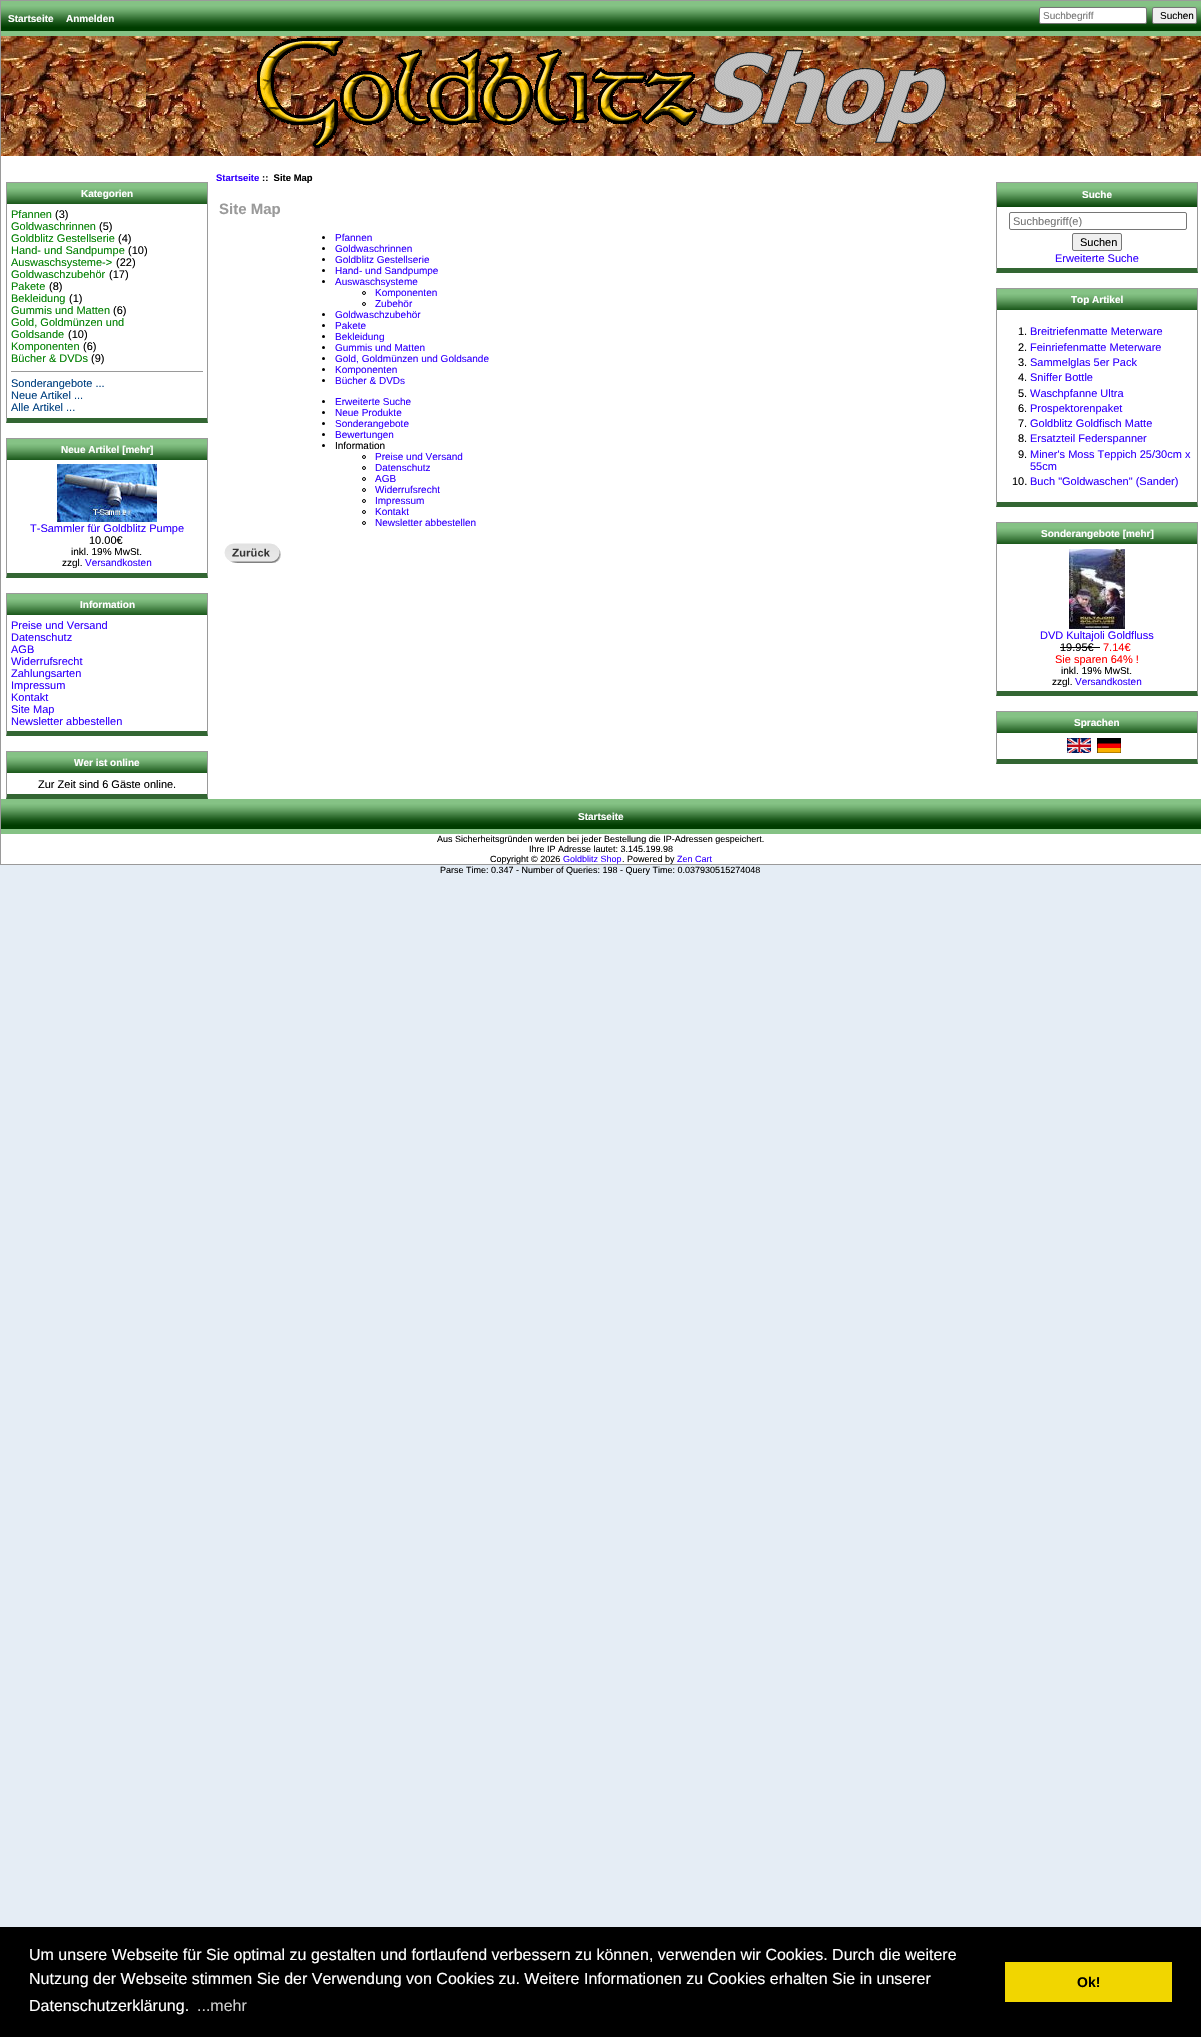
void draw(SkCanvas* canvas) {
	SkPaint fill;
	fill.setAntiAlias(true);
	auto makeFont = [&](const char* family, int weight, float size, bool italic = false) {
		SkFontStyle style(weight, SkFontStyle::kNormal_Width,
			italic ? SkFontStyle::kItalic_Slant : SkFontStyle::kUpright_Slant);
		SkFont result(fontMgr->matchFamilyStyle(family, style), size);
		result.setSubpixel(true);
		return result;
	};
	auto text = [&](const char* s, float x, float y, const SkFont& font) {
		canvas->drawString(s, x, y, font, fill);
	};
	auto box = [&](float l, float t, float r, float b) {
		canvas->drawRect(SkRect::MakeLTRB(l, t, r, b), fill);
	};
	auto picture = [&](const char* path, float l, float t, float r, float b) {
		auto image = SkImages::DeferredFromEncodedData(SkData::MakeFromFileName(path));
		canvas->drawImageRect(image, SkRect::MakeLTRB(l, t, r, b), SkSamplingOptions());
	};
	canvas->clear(0xFFE5EDF5);
	fill.setColor(0xFFFFFFFF);
	box(1, 156, 1201, 864);
	fill.setStyle(SkPaint::kStroke_Style);
	fill.setStrokeWidth(1);
	fill.setColor(0xFF9A9A9A);
	canvas->drawRect(SkRect::MakeLTRB(0.5f, 0.5f, 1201.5f, 864.5f), fill);
	picture("image0.png", 1, 1, 1201, 36);
	fill.setStyle(SkPaint::kFill_Style);
	fill.setColor(0xFFFFFFFF);
	canvas->drawRoundRect(SkRect::MakeLTRB(1039.5f, 7.5f, 1146.5f, 23.5f), 1.5f, 1.5f, fill);
	fill.setStyle(SkPaint::kStroke_Style);
	fill.setColor(0xFF767676);
	canvas->drawRoundRect(SkRect::MakeLTRB(1039.5f, 7.5f, 1146.5f, 23.5f), 1.5f, 1.5f, fill);
	fill.setStyle(SkPaint::kFill_Style);
	fill.setColor(0xFFEFEFEF);
	canvas->drawRoundRect(SkRect::MakeLTRB(1152.5f, 7.5f, 1196.5f, 23.5f), 1.5f, 1.5f, fill);
	fill.setStyle(SkPaint::kStroke_Style);
	fill.setColor(0xFF767676);
	canvas->drawRoundRect(SkRect::MakeLTRB(1152.5f, 7.5f, 1196.5f, 23.5f), 1.5f, 1.5f, fill);
	picture("image1.png", 1, 36, 1201, 156);
	picture("image2.png", 257, 38, 946, 148);
	fill.setStyle(SkPaint::kFill_Style);
	fill.setColor(0xFF9A9A9A);
	box(6, 182, 208, 183);
	canvas->drawPath(SkPathBuilder().moveTo(208, 182).lineTo(208, 423).lineTo(207, 418).lineTo(207, 183).close().detach(), fill);
	fill.setColor(0xFF336633);
	canvas->drawPath(SkPathBuilder().moveTo(208, 423).lineTo(6, 423).lineTo(7, 418).lineTo(207, 418).close().detach(), fill);
	fill.setColor(0xFF9A9A9A);
	canvas->drawPath(SkPathBuilder().moveTo(6, 423).lineTo(6, 182).lineTo(7, 183).lineTo(7, 418).close().detach(), fill);
	picture("image3.png", 7, 183, 207, 204);
	box(11, 371, 203, 372);
	box(6, 438, 208, 439);
	canvas->drawPath(SkPathBuilder().moveTo(208, 438).lineTo(208, 578).lineTo(207, 573).lineTo(207, 439).close().detach(), fill);
	fill.setColor(0xFF336633);
	canvas->drawPath(SkPathBuilder().moveTo(208, 578).lineTo(6, 578).lineTo(7, 573).lineTo(207, 573).close().detach(), fill);
	fill.setColor(0xFF9A9A9A);
	canvas->drawPath(SkPathBuilder().moveTo(6, 578).lineTo(6, 438).lineTo(7, 439).lineTo(7, 573).close().detach(), fill);
	picture("image3.png", 7, 439, 207, 460);
	picture("image4.png", 57, 464, 157, 522);
	box(6, 593, 208, 594);
	canvas->drawPath(SkPathBuilder().moveTo(208, 593).lineTo(208, 736).lineTo(207, 731).lineTo(207, 594).close().detach(), fill);
	fill.setColor(0xFF336633);
	canvas->drawPath(SkPathBuilder().moveTo(208, 736).lineTo(6, 736).lineTo(7, 731).lineTo(207, 731).close().detach(), fill);
	fill.setColor(0xFF9A9A9A);
	canvas->drawPath(SkPathBuilder().moveTo(6, 736).lineTo(6, 593).lineTo(7, 594).lineTo(7, 731).close().detach(), fill);
	picture("image3.png", 7, 594, 207, 615);
	box(6, 751, 208, 752);
	canvas->drawPath(SkPathBuilder().moveTo(208, 751).lineTo(208, 799).lineTo(207, 794).lineTo(207, 752).close().detach(), fill);
	fill.setColor(0xFF336633);
	canvas->drawPath(SkPathBuilder().moveTo(208, 799).lineTo(6, 799).lineTo(7, 794).lineTo(207, 794).close().detach(), fill);
	fill.setColor(0xFF9A9A9A);
	canvas->drawPath(SkPathBuilder().moveTo(6, 799).lineTo(6, 751).lineTo(7, 752).lineTo(7, 794).close().detach(), fill);
	picture("image3.png", 7, 752, 207, 773);
	fill.setColor(0xFF000000);
	canvas->drawCircle(323.5f, 237.5f, 1.5f, fill);
	canvas->drawCircle(323.5f, 248.5f, 1.5f, fill);
	canvas->drawCircle(323.5f, 259.5f, 1.5f, fill);
	canvas->drawCircle(323.5f, 270.5f, 1.5f, fill);
	canvas->drawCircle(323.5f, 281.5f, 1.5f, fill);
	fill.setStyle(SkPaint::kStroke_Style);
	canvas->drawCircle(364, 293, 1.5f, fill);
	canvas->drawCircle(364, 304, 1.5f, fill);
	fill.setStyle(SkPaint::kFill_Style);
	canvas->drawCircle(323.5f, 314.5f, 1.5f, fill);
	canvas->drawCircle(323.5f, 325.5f, 1.5f, fill);
	canvas->drawCircle(323.5f, 336.5f, 1.5f, fill);
	canvas->drawCircle(323.5f, 347.5f, 1.5f, fill);
	canvas->drawCircle(323.5f, 358.5f, 1.5f, fill);
	canvas->drawCircle(323.5f, 369.5f, 1.5f, fill);
	canvas->drawCircle(323.5f, 380.5f, 1.5f, fill);
	canvas->drawCircle(323.5f, 401.5f, 1.5f, fill);
	canvas->drawCircle(323.5f, 412.5f, 1.5f, fill);
	canvas->drawCircle(323.5f, 423.5f, 1.5f, fill);
	canvas->drawCircle(323.5f, 434.5f, 1.5f, fill);
	canvas->drawCircle(323.5f, 445.5f, 1.5f, fill);
	fill.setStyle(SkPaint::kStroke_Style);
	canvas->drawCircle(364, 457, 1.5f, fill);
	canvas->drawCircle(364, 468, 1.5f, fill);
	canvas->drawCircle(364, 479, 1.5f, fill);
	canvas->drawCircle(364, 490, 1.5f, fill);
	canvas->drawCircle(364, 501, 1.5f, fill);
	canvas->drawCircle(364, 512, 1.5f, fill);
	canvas->drawCircle(364, 523, 1.5f, fill);
	picture("image5.png", 224, 543, 281, 563);
	fill.setStyle(SkPaint::kFill_Style);
	fill.setColor(0xFF9A9A9A);
	box(996, 182, 1198, 183);
	canvas->drawPath(SkPathBuilder().moveTo(1198, 182).lineTo(1198, 273).lineTo(1197, 268).lineTo(1197, 183).close().detach(), fill);
	fill.setColor(0xFF336633);
	canvas->drawPath(SkPathBuilder().moveTo(1198, 273).lineTo(996, 273).lineTo(997, 268).lineTo(1197, 268).close().detach(), fill);
	fill.setColor(0xFF9A9A9A);
	canvas->drawPath(SkPathBuilder().moveTo(996, 273).lineTo(996, 182).lineTo(997, 183).lineTo(997, 268).close().detach(), fill);
	picture("image6.png", 997, 183, 1197, 207);
	fill.setStyle(SkPaint::kStroke_Style);
	fill.setColor(0xFF767676);
	canvas->drawRoundRect(SkRect::MakeLTRB(1009.5f, 212.5f, 1186.5f, 229.5f), 1.5f, 1.5f, fill);
	fill.setStyle(SkPaint::kFill_Style);
	fill.setColor(0xFFEFEFEF);
	canvas->drawRoundRect(SkRect::MakeLTRB(1072.5f, 233.5f, 1121.5f, 250.5f), 1.5f, 1.5f, fill);
	fill.setStyle(SkPaint::kStroke_Style);
	fill.setColor(0xFF767676);
	canvas->drawRoundRect(SkRect::MakeLTRB(1072.5f, 233.5f, 1121.5f, 250.5f), 1.5f, 1.5f, fill);
	fill.setStyle(SkPaint::kFill_Style);
	fill.setColor(0xFF9A9A9A);
	box(996, 288, 1198, 289);
	canvas->drawPath(SkPathBuilder().moveTo(1198, 288).lineTo(1198, 507).lineTo(1197, 502).lineTo(1197, 289).close().detach(), fill);
	fill.setColor(0xFF336633);
	canvas->drawPath(SkPathBuilder().moveTo(1198, 507).lineTo(996, 507).lineTo(997, 502).lineTo(1197, 502).close().detach(), fill);
	fill.setColor(0xFF9A9A9A);
	canvas->drawPath(SkPathBuilder().moveTo(996, 507).lineTo(996, 288).lineTo(997, 289).lineTo(997, 502).close().detach(), fill);
	picture("image3.png", 997, 289, 1197, 310);
	box(996, 522, 1198, 523);
	canvas->drawPath(SkPathBuilder().moveTo(1198, 522).lineTo(1198, 696).lineTo(1197, 691).lineTo(1197, 523).close().detach(), fill);
	fill.setColor(0xFF336633);
	canvas->drawPath(SkPathBuilder().moveTo(1198, 696).lineTo(996, 696).lineTo(997, 691).lineTo(1197, 691).close().detach(), fill);
	fill.setColor(0xFF9A9A9A);
	canvas->drawPath(SkPathBuilder().moveTo(996, 696).lineTo(996, 522).lineTo(997, 523).lineTo(997, 691).close().detach(), fill);
	picture("image3.png", 997, 523, 1197, 544);
	picture("image7.png", 1069, 549, 1125, 629);
	fill.setColor(0xFF000000);
	box(1060, 647, 1100, 648);
	fill.setColor(0xFF9A9A9A);
	box(996, 711, 1198, 712);
	canvas->drawPath(SkPathBuilder().moveTo(1198, 711).lineTo(1198, 764).lineTo(1197, 759).lineTo(1197, 712).close().detach(), fill);
	fill.setColor(0xFF336633);
	canvas->drawPath(SkPathBuilder().moveTo(1198, 764).lineTo(996, 764).lineTo(997, 759).lineTo(1197, 759).close().detach(), fill);
	fill.setColor(0xFF9A9A9A);
	canvas->drawPath(SkPathBuilder().moveTo(996, 764).lineTo(996, 711).lineTo(997, 712).lineTo(997, 759).close().detach(), fill);
	picture("image3.png", 997, 712, 1197, 733);
	picture("image8.png", 1067, 738, 1091, 753);
	picture("image9.png", 1097, 738, 1121, 753);
	picture("image0.png", 1, 799, 1201, 834);
	fill.setColor(0xFF000000);
	box(0, 1927, 1201, 2037);
	fill.setColor(0xFFF1D600);
	box(1005, 1962, 1172, 2002);
	auto font1 = makeFont("Liberation Sans", 700, 10);
	fill.setColor(0xFFFFFFFF);
	text("Startseite", 8, 22, font1);
	text("Anmelden", 66, 22, font1);
	auto font2 = makeFont("Liberation Sans", 400, 10);
	fill.setColor(0xFF757575);
	text("Suchbegriff", 1043, 19, font2);
	fill.setColor(0xFF000000);
	text("Suchen", 1160, 19, font2);
	fill.setColor(0xFFFFFFFF);
	text("Kategorien", 81, 197, font1);
	auto font3 = makeFont("Liberation Sans", 400, 11);
	fill.setColor(0xFF008000);
	text("Pfannen", 11, 218, font3);
	fill.setColor(0xFF000000);
	text("(3)", 55, 218, font3);
	fill.setColor(0xFF008000);
	text("Goldwaschrinnen", 11, 230, font3);
	fill.setColor(0xFF000000);
	text("(5)", 99, 230, font3);
	fill.setColor(0xFF008000);
	text("Goldblitz Gestellserie", 11, 242, font3);
	fill.setColor(0xFF000000);
	text("(4)", 118, 242, font3);
	fill.setColor(0xFF008000);
	text("Hand- und Sandpumpe", 11, 254, font3);
	fill.setColor(0xFF000000);
	text("(10)", 128, 254, font3);
	fill.setColor(0xFF008000);
	text("Auswaschsysteme->", 11, 266, font3);
	fill.setColor(0xFF000000);
	text("(22)", 116, 266, font3);
	fill.setColor(0xFF008000);
	text("Goldwaschzubehör", 11, 278, font3);
	fill.setColor(0xFF000000);
	text("(17)", 109, 278, font3);
	fill.setColor(0xFF008000);
	text("Pakete", 11, 290, font3);
	fill.setColor(0xFF000000);
	text("(8)", 49, 290, font3);
	fill.setColor(0xFF008000);
	text("Bekleidung", 11, 302, font3);
	fill.setColor(0xFF000000);
	text("(1)", 69, 302, font3);
	fill.setColor(0xFF008000);
	text("Gummis und Matten", 11, 314, font3);
	fill.setColor(0xFF000000);
	text("(6)", 113, 314, font3);
	fill.setColor(0xFF008000);
	text("Gold, Goldmünzen und", 11, 326, font3);
	text("Goldsande", 11, 338, font3);
	fill.setColor(0xFF000000);
	text("(10)", 68, 338, font3);
	fill.setColor(0xFF008000);
	text("Komponenten", 11, 350, font3);
	fill.setColor(0xFF000000);
	text("(6)", 83, 350, font3);
	fill.setColor(0xFF008000);
	text("Bücher & DVDs", 11, 362, font3);
	fill.setColor(0xFF000000);
	text("(9)", 91, 362, font3);
	fill.setColor(0xFF004080);
	text("Sonderangebote ...", 11, 387, font3);
	text("Neue Artikel ...", 11, 399, font3);
	text("Alle Artikel ...", 11, 411, font3);
	fill.setColor(0xFFFFFFFF);
	text("Neue Artikel [mehr]", 61, 453, font1);
	fill.setColor(0xFF3300FF);
	text("T-Sammler für Goldblitz Pumpe", 30, 532, font3);
	fill.setColor(0xFF000000);
	text("10.00€", 89, 544, font3);
	text("inkl. 19% MwSt.", 71, 555, font2);
	text("zzgl.", 62, 566, font2);
	fill.setColor(0xFF3300FF);
	text("Versandkosten", 85, 566, font2);
	fill.setColor(0xFFFFFFFF);
	text("Information", 80, 608, font1);
	fill.setColor(0xFF3300FF);
	text("Preise und Versand", 11, 629, font3);
	text("Datenschutz", 11, 641, font3);
	text("AGB", 11, 653, font3);
	text("Widerrufsrecht", 11, 665, font3);
	text("Zahlungsarten", 11, 677, font3);
	text("Impressum", 11, 689, font3);
	text("Kontakt", 11, 701, font3);
	text("Site Map", 11, 713, font3);
	text("Newsletter abbestellen", 11, 725, font3);
	fill.setColor(0xFFFFFFFF);
	text("Wer ist online", 74, 766, font1);
	fill.setColor(0xFF000000);
	text("Zur Zeit sind 6 Gäste online.", 38, 788, font3);
	auto font4 = makeFont("Liberation Sans", 700, 9.5f);
	fill.setColor(0xFF3300FF);
	text("Startseite", 216, 181, font4);
	fill.setColor(0xFF000000);
	text("::  Site Map", 262, 181, font4);
	auto font5 = makeFont("Liberation Sans", 700, 15);
	fill.setColor(0xFF9A9A9A);
	text("Site Map", 219, 214, font5);
	fill.setColor(0xFF3300FF);
	text("Pfannen", 335, 241, font2);
	text("Goldwaschrinnen", 335, 252, font2);
	text("Goldblitz Gestellserie", 335, 263, font2);
	text("Hand- und Sandpumpe", 335, 274, font2);
	text("Auswaschsysteme", 335, 285, font2);
	text("Komponenten", 375, 296, font2);
	text("Zubehör", 375, 307, font2);
	text("Goldwaschzubehör", 335, 318, font2);
	text("Pakete", 335, 329, font2);
	text("Bekleidung", 335, 340, font2);
	text("Gummis und Matten", 335, 351, font2);
	text("Gold, Goldmünzen und Goldsande", 335, 362, font2);
	text("Komponenten", 335, 373, font2);
	text("Bücher & DVDs", 335, 384, font2);
	text("Erweiterte Suche", 335, 405, font2);
	text("Neue Produkte", 335, 416, font2);
	text("Sonderangebote", 335, 427, font2);
	text("Bewertungen", 335, 438, font2);
	fill.setColor(0xFF000000);
	text("Information", 335, 449, font2);
	fill.setColor(0xFF3300FF);
	text("Preise und Versand", 375, 460, font2);
	text("Datenschutz", 375, 471, font2);
	text("AGB", 375, 482, font2);
	text("Widerrufsrecht", 375, 493, font2);
	text("Impressum", 375, 504, font2);
	text("Kontakt", 375, 515, font2);
	text("Newsletter abbestellen", 375, 526, font2);
	fill.setColor(0xFFFFFFFF);
	text("Suche", 1082, 198, font1);
	canvas->save();
	canvas->clipRect(SkRect::MakeLTRB(1013, 215, 1183, 227));
	fill.setColor(0xFF757575);
	text("Suchbegriff(e)", 1013, 225, font3);
	canvas->restore();
	fill.setColor(0xFF000000);
	text("Suchen", 1080, 246, font3);
	fill.setColor(0xFF3300FF);
	text("Erweiterte Suche", 1055, 262, font3);
	fill.setColor(0xFFFFFFFF);
	text("Top Artikel", 1071, 303, font1);
	fill.setColor(0xFF000000);
	text("1.", 1018, 335, font3);
	fill.setColor(0xFF3300FF);
	text("Breitriefenmatte Meterware", 1030, 335, font3);
	fill.setColor(0xFF000000);
	text("2.", 1018, 351, font3);
	fill.setColor(0xFF3300FF);
	text("Feinriefenmatte Meterware", 1030, 351, font3);
	fill.setColor(0xFF000000);
	text("3.", 1018, 366, font3);
	fill.setColor(0xFF3300FF);
	text("Sammelglas 5er Pack", 1030, 366, font3);
	fill.setColor(0xFF000000);
	text("4.", 1018, 381, font3);
	fill.setColor(0xFF3300FF);
	text("Sniffer Bottle", 1030, 381, font3);
	fill.setColor(0xFF000000);
	text("5.", 1018, 397, font3);
	fill.setColor(0xFF3300FF);
	text("Waschpfanne Ultra", 1030, 397, font3);
	fill.setColor(0xFF000000);
	text("6.", 1018, 412, font3);
	fill.setColor(0xFF3300FF);
	text("Prospektorenpaket", 1030, 412, font3);
	fill.setColor(0xFF000000);
	text("7.", 1018, 427, font3);
	fill.setColor(0xFF3300FF);
	text("Goldblitz Goldfisch Matte", 1030, 427, font3);
	fill.setColor(0xFF000000);
	text("8.", 1018, 442, font3);
	fill.setColor(0xFF3300FF);
	text("Ersatzteil Federspanner", 1030, 442, font3);
	fill.setColor(0xFF000000);
	text("9.", 1018, 458, font3);
	fill.setColor(0xFF3300FF);
	text("Miner's Moss Teppich 25/30cm x", 1030, 458, font3);
	text("55cm", 1030, 470, font3);
	fill.setColor(0xFF000000);
	text("10.", 1012, 485, font3);
	fill.setColor(0xFF3300FF);
	text("Buch \"Goldwaschen\" (Sander)", 1030, 485, font3);
	fill.setColor(0xFFFFFFFF);
	text("Sonderangebote [mehr]", 1041, 537, font1);
	fill.setColor(0xFF3300FF);
	text("DVD Kultajoli Goldfluss", 1040, 639, font3);
	fill.setColor(0xFF000000);
	text("19.95€", 1060, 651, font3);
	fill.setColor(0xFFFF0000);
	text("7.14€", 1103, 651, font3);
	text("Sie sparen 64% !", 1055, 663, font3);
	fill.setColor(0xFF000000);
	text("inkl. 19% MwSt.", 1061, 674, font2);
	text("zzgl.", 1052, 685, font2);
	fill.setColor(0xFF3300FF);
	text("Versandkosten", 1075, 685, font2);
	fill.setColor(0xFFFFFFFF);
	text("Sprachen", 1074, 726, font1);
	text("Startseite", 578, 820, font1);
	auto font6 = makeFont("Liberation Sans", 400, 9);
	fill.setColor(0xFF000000);
	text("Aus Sicherheitsgründen werden bei jeder Bestellung die IP-Adressen gespeichert.", 437, 842, font6);
	text("Ihre IP Adresse lautet: 3.145.199.98", 529, 852, font6);
	text("Copyright © 2026", 490, 862, font6);
	fill.setColor(0xFF3300FF);
	text("Goldblitz Shop", 563, 862, font6);
	fill.setColor(0xFF000000);
	text(". Powered by", 622, 862, font6);
	fill.setColor(0xFF3300FF);
	text("Zen Cart", 677, 862, font6);
	fill.setColor(0xFF000000);
	text("Parse Time: 0.347 - Number of Queries: 198 - Query Time: 0.037930515274048", 440, 873, font6);
	auto font7 = makeFont("Liberation Sans", 400, 16);
	fill.setColor(0xFFFFFFFF);
	text("Um unsere Webseite für Sie optimal zu gestalten und fortlaufend verbessern zu können, verwenden wir Cookies. Durch die weitere", 29, 1960, font7);
	text("Nutzung der Webseite stimmen Sie der Verwendung von Cookies zu. Weitere Informationen zu Cookies erhalten Sie in unserer", 29, 1984, font7);
	text("Datenschutzerklärung.", 29, 2011, font7);
	fill.setColor(0xFFCCCCCC);
	text("...mehr", 197, 2011, font7);
	auto font8 = makeFont("Liberation Sans", 700, 14);
	fill.setColor(0xFF000000);
	text("Ok!", 1077, 1987, font8);
}
